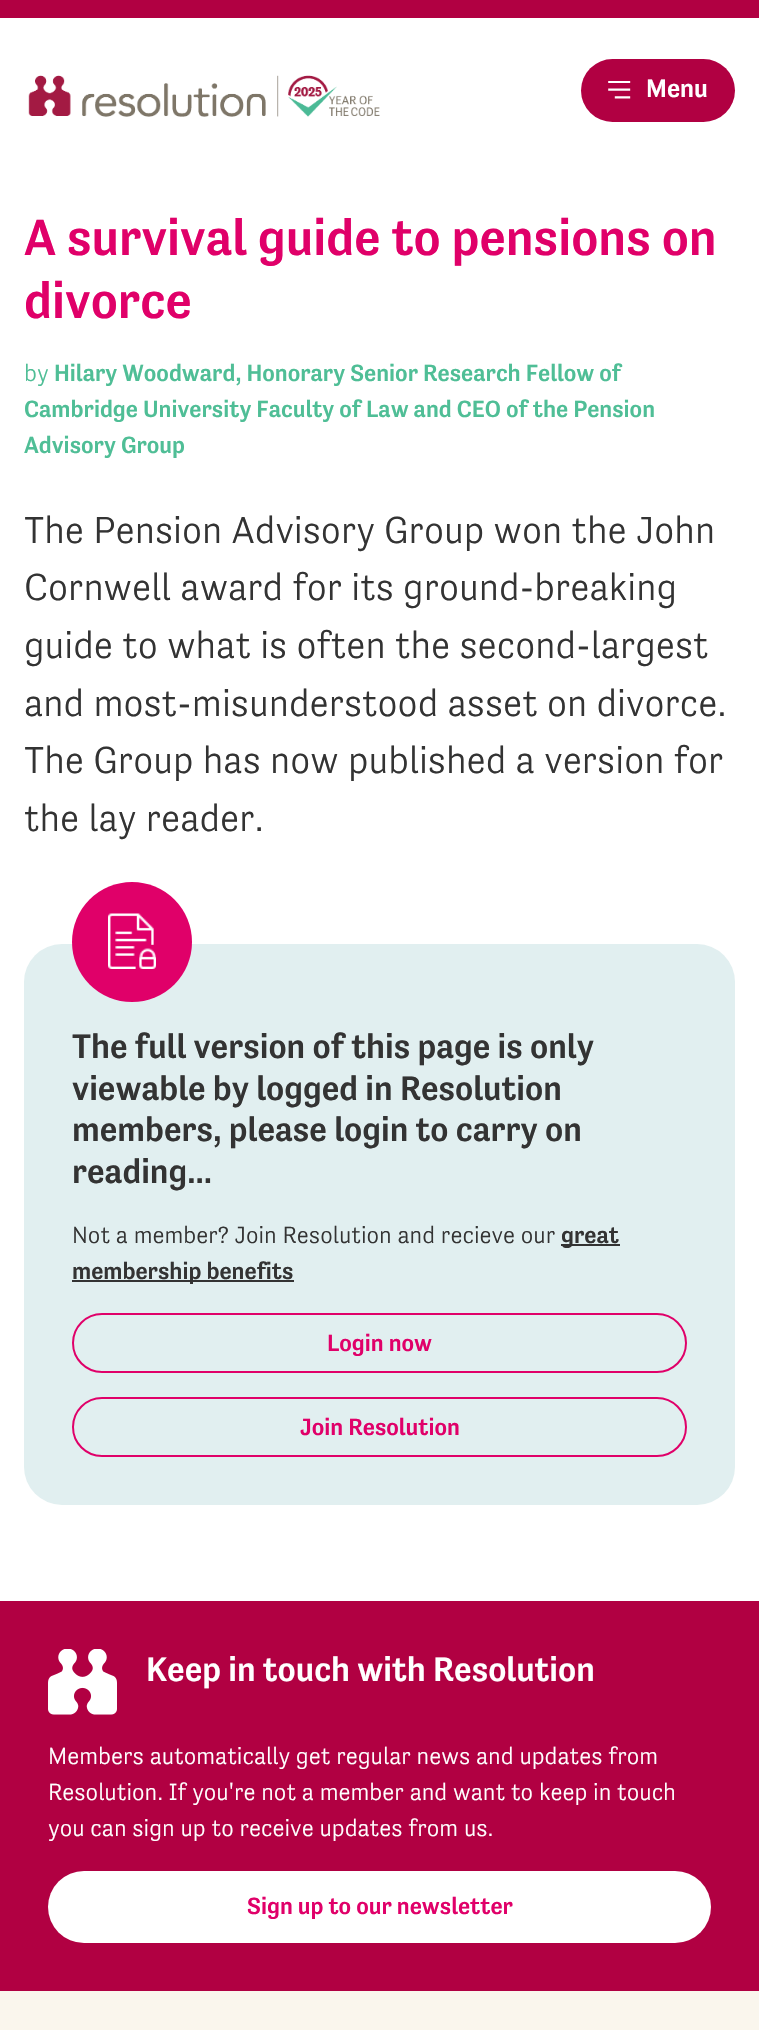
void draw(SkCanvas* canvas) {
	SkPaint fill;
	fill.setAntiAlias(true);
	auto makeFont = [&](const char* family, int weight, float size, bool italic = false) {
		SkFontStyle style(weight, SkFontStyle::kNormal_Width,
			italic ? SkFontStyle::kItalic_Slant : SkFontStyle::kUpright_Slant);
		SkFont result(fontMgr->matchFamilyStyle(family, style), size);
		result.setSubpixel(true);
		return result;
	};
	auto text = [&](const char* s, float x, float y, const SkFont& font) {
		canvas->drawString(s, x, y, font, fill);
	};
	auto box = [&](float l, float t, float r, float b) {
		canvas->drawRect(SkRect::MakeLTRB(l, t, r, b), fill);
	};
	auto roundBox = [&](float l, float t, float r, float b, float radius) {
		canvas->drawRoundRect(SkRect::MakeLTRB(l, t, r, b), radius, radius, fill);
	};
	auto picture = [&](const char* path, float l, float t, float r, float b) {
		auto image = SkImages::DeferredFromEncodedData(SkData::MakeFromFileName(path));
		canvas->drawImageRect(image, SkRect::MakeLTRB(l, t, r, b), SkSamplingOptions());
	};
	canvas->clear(0xFFFFFFFF);
	fill.setColor(0xFFB10042);
	box(0, 0, 759, 18);
	picture("image0.png", 28, 75, 380, 117);
	roundBox(581, 59, 735, 122, 31.5f);
	picture("image1.png", 608, 81, 631, 99);
	fill.setColor(0xFFE1EFF0);
	roundBox(24, 944, 735, 1505, 38);
	fill.setColor(0xFFE00069);
	canvas->drawCircle(132, 942, 60, fill);
	picture("image2.png", 108, 913, 156, 969);
	fill.setColor(0xFF333333);
	box(561, 1244, 620, 1246);
	box(72, 1280, 294, 1282);
	fill.setStyle(SkPaint::kStroke_Style);
	fill.setStrokeWidth(2);
	fill.setColor(0xFFE00069);
	canvas->drawRoundRect(SkRect::MakeLTRB(73, 1314, 686, 1372), 29, 29, fill);
	canvas->drawRoundRect(SkRect::MakeLTRB(73, 1398, 686, 1456), 29, 29, fill);
	fill.setStyle(SkPaint::kFill_Style);
	fill.setColor(0xFFB10042);
	box(0, 1601, 759, 1991);
	picture("image3.png", 48, 1649, 117, 1715);
	fill.setColor(0xFFFFFFFF);
	roundBox(48, 1871, 711, 1943, 36);
	fill.setColor(0xFFFAF6ED);
	box(0, 1991, 759, 2030);
	auto font1 = makeFont("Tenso", 500, 26);
	fill.setColor(0xFFFFFFFF);
	text("Menu", 646, 97, font1);
	auto font2 = makeFont("Tenso", 500, 51.9f);
	fill.setColor(0xFFE00069);
	text("A survival guide to pensions on", 24, 255, font2);
	text("divorce", 24, 318, font2);
	auto font3 = makeFont("Tenso", 300, 24);
	fill.setColor(0xFF4FBE96);
	text("by", 24, 381, font3);
	auto font4 = makeFont("Tenso", 500, 24);
	text("Hilary Woodward, Honorary Senior Research Fellow of", 54, 381, font4);
	text("Cambridge University Faculty of Law and CEO of the Pension", 24, 417, font4);
	text("Advisory Group", 24, 453, font4);
	auto font5 = makeFont("Tenso", 300, 38.4f);
	fill.setColor(0xFF333333);
	text("The Pension Advisory Group won the John", 24, 543, font5);
	text("Cornwell award for its ground-breaking", 24, 600, font5);
	text("guide to what is often the second-largest", 24, 658, font5);
	text("and most-misunderstood asset on divorce.", 24, 716, font5);
	text("The Group has now published a version for", 24, 773, font5);
	text("the lay reader.", 24, 831, font5);
	auto font6 = makeFont("Tenso", 500, 34.75f);
	text("The full version of this page is only", 72, 1058, font6);
	text("viewable by logged in Resolution", 72, 1100, font6);
	text("members, please login to carry on", 72, 1141, font6);
	text("reading...", 72, 1183, font6);
	text("Not a member? Join Resolution and recieve our", 72, 1243, font3);
	text("great", 561, 1243, font4);
	text("membership benefits", 72, 1279, font4);
	fill.setColor(0xFFE00069);
	text("Login now", 327, 1351, font4);
	text("Join Resolution", 300, 1435, font4);
	fill.setColor(0xFFFFFFFF);
	text("Keep in touch with Resolution", 146, 1681, font6);
	text("Members automatically get regular news and updates from", 48, 1764, font3);
	text("Resolution. If you're not a member and want to keep in touch", 48, 1800, font3);
	text("you can sign up to receive updates from us.", 48, 1836, font3);
	fill.setColor(0xFFE00069);
	text("Sign up to our newsletter", 247, 1914, font4);
}
